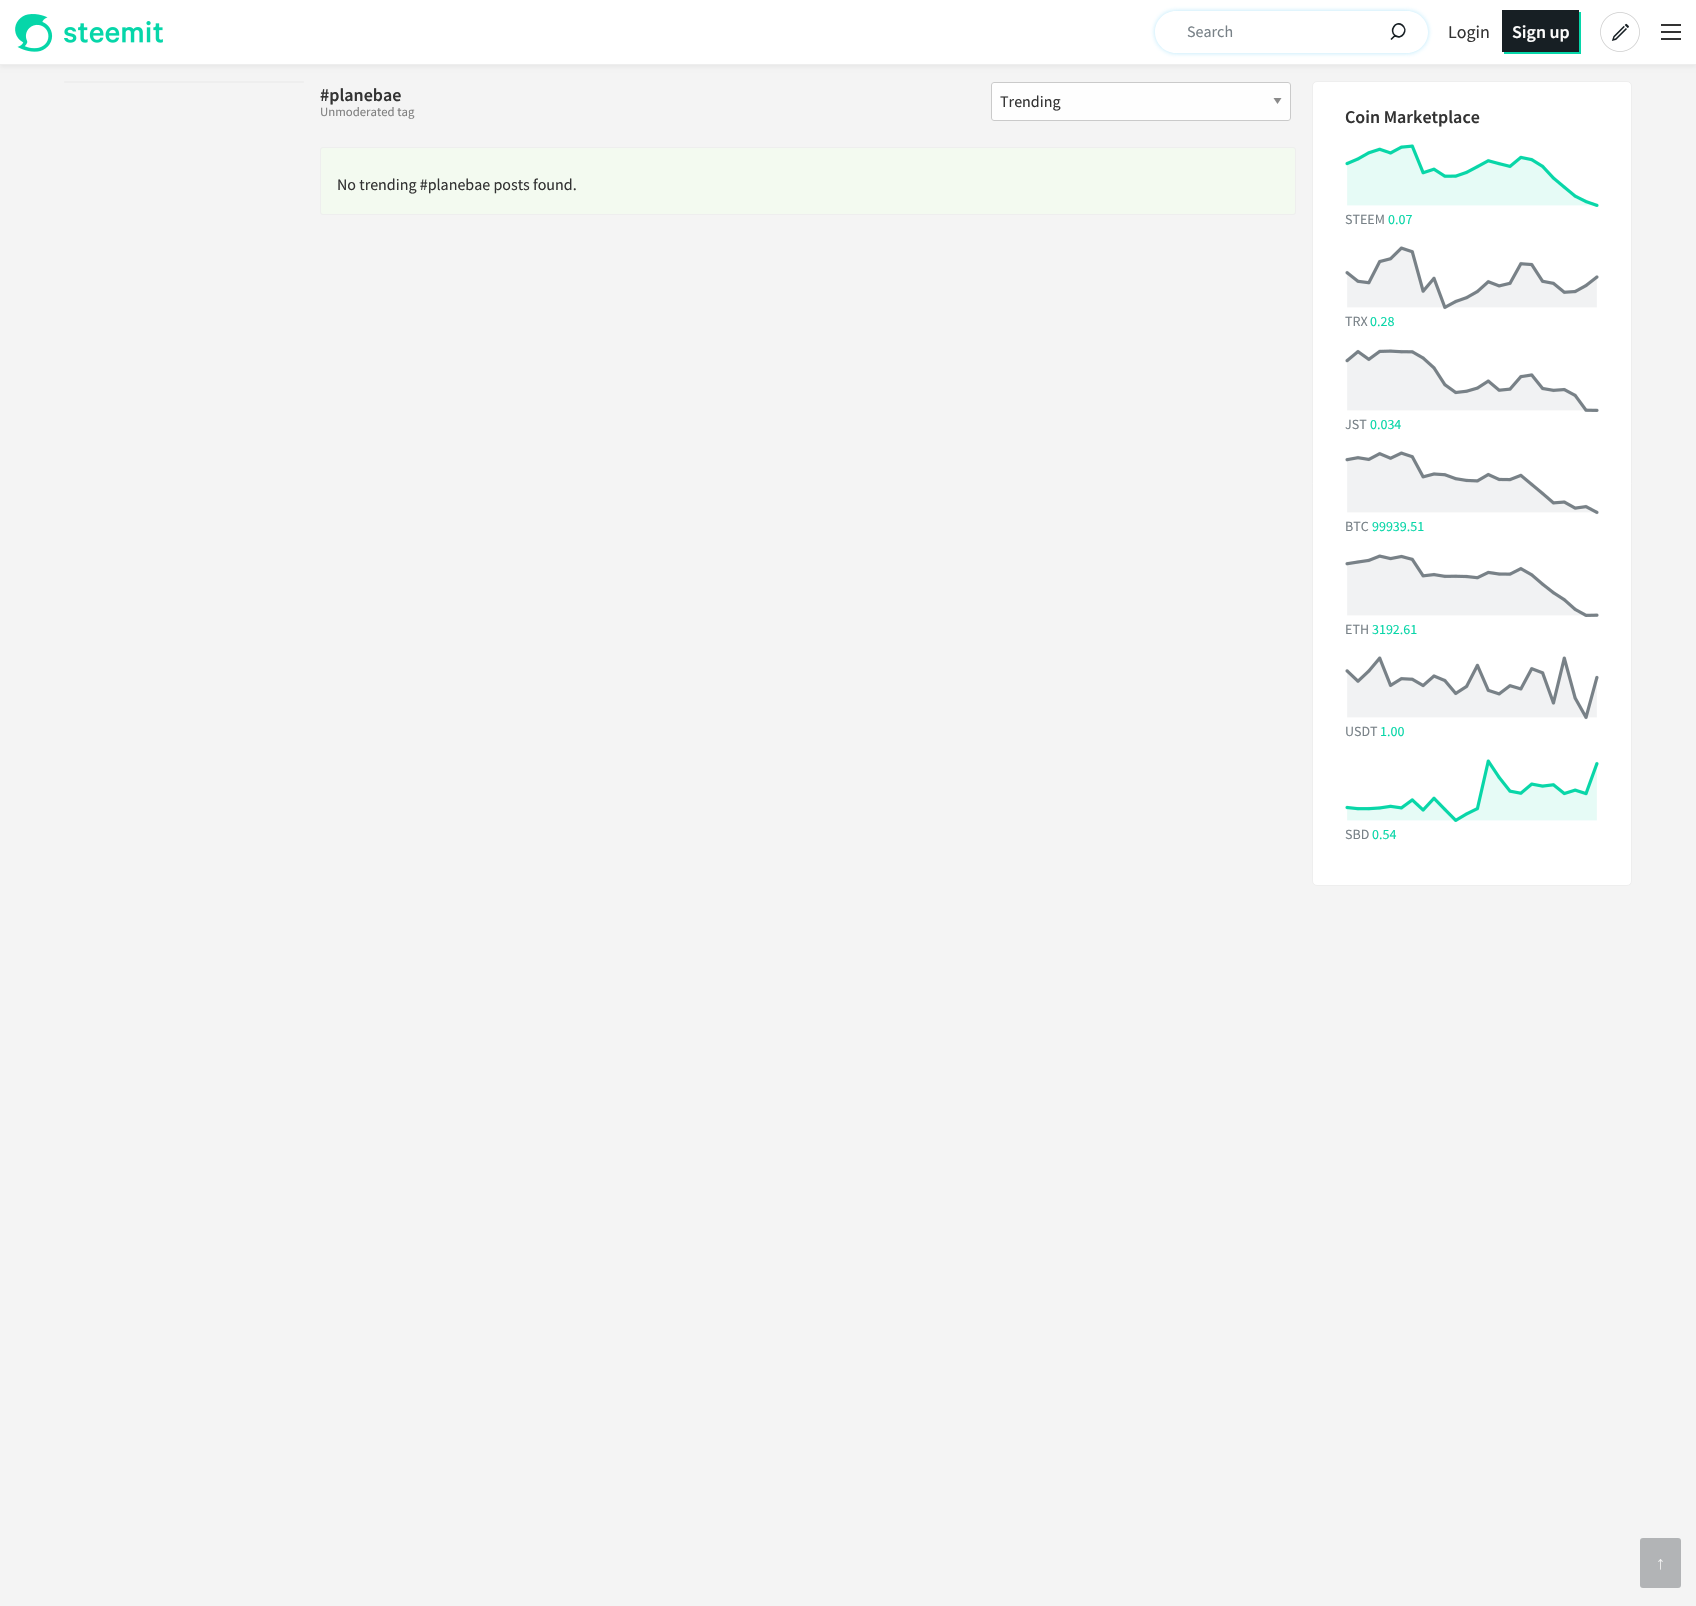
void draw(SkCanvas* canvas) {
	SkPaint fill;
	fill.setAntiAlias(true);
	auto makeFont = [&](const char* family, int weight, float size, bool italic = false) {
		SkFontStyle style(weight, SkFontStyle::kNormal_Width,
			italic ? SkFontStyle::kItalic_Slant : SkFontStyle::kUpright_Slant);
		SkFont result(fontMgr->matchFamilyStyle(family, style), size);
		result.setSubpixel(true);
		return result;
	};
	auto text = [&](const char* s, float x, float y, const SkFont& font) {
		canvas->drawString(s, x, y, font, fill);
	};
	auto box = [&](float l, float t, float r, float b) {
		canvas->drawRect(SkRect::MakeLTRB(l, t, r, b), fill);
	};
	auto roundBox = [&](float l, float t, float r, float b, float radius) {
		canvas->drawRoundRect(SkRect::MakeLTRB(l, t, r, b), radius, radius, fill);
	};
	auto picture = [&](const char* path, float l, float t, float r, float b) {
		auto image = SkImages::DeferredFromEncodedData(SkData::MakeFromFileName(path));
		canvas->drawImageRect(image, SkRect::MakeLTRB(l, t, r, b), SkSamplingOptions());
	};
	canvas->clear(0xFFF4F4F4);
	fill.setColor(0x0D000000);
	fill.setMaskFilter(SkMaskFilter::MakeBlur(kNormal_SkBlurStyle, 2));
	canvas->drawRect(SkRect::MakeLTRB(0, 2, 1696, 67), fill);
	fill.setMaskFilter(nullptr);
	fill.setColor(0xFFFFFFFF);
	box(0, 0, 1696, 64);
	fill.setColor(0xFFEEEEEE);
	box(0, 64, 1696, 65);
	picture("image0.png", 15, 14, 163, 52);
	canvas->save();
	canvas->clipPath(SkPathBuilder(SkPathFillType::kEvenOdd).moveTo(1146, 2).lineTo(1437, 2).lineTo(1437, 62).lineTo(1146, 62).close().moveTo(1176, 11).lineTo(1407, 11).cubicTo(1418.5f, 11, 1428, 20.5f, 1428, 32).cubicTo(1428, 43.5f, 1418.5f, 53, 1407, 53).lineTo(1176, 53).cubicTo(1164.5f, 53, 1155, 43.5f, 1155, 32).cubicTo(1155, 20.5f, 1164.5f, 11, 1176, 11).close().detach(), true);
	fill.setColor(0x806DCFF6);
	fill.setMaskFilter(SkMaskFilter::MakeBlur(kNormal_SkBlurStyle, 2.5f));
	canvas->drawRoundRect(SkRect::MakeLTRB(1155, 11, 1428, 53), 21, 21, fill);
	fill.setMaskFilter(nullptr);
	canvas->restore();
	fill.setStyle(SkPaint::kStroke_Style);
	fill.setStrokeWidth(1.6f);
	fill.setColor(0xFF171F24);
	canvas->drawPath(SkPathBuilder().moveTo(1395, 35.5f).lineTo(1391, 39.5f).lineTo(1395, 35.5f).cubicTo(1389, 30.5f, 1395.5f, 20.5f, 1402, 25).cubicTo(1409, 30, 1401.5f, 40.5f, 1395, 35.5f).close().detach(), fill);
	fill.setStyle(SkPaint::kFill_Style);
	fill.setColor(0xFF06D6A9);
	canvas->drawPath(SkPathBuilder().moveTo(1504, 52).lineTo(1504, 54).lineTo(1581, 54).lineTo(1581, 12).lineTo(1579, 12).lineTo(1579, 52).close().detach(), fill);
	fill.setColor(0xFF171F24);
	box(1502, 10, 1579, 52);
	picture("image1.png", 1600, 12, 1640, 52);
	fill.setColor(0xFF333333);
	box(1661, 38, 1681, 40);
	box(1661, 31, 1681, 33);
	box(1661, 24, 1681, 26);
	fill.setColor(0xFFEEEEEE);
	roundBox(64, 81, 304, 83, 1);
	fill.setColor(0xFFFEFEFE);
	roundBox(991, 82, 1291, 121, 3);
	fill.setColor(0xFF8A8A8A);
	canvas->drawPath(SkPathBuilder().moveTo(1273.5f, 98).lineTo(1281.5f, 98).lineTo(1277.5f, 104).close().detach(), fill);
	fill.setStyle(SkPaint::kStroke_Style);
	fill.setStrokeWidth(1);
	fill.setColor(0xFFCACACA);
	canvas->drawRoundRect(SkRect::MakeLTRB(991.5f, 82.5f, 1290.5f, 120.5f), 2.5f, 2.5f, fill);
	fill.setStyle(SkPaint::kFill_Style);
	fill.setColor(0xFFF3FAF0);
	canvas->drawRoundRect(SkRect::MakeLTRB(320.5f, 147.5f, 1295.5f, 214.5f), 2.5f, 2.5f, fill);
	fill.setStyle(SkPaint::kStroke_Style);
	fill.setColor(0xFFEEEEEE);
	canvas->drawRoundRect(SkRect::MakeLTRB(320.5f, 147.5f, 1295.5f, 214.5f), 2.5f, 2.5f, fill);
	fill.setStyle(SkPaint::kFill_Style);
	fill.setColor(0xFFFFFFFF);
	canvas->drawRoundRect(SkRect::MakeLTRB(1312.5f, 81.5f, 1631.5f, 885.5f), 4.5f, 4.5f, fill);
	fill.setStyle(SkPaint::kStroke_Style);
	fill.setColor(0xFFEEEEEE);
	canvas->drawRoundRect(SkRect::MakeLTRB(1312.5f, 81.5f, 1631.5f, 885.5f), 4.5f, 4.5f, fill);
	picture("image2.png", 1345, 144, 1599, 207);
	picture("image3.png", 1345, 246, 1599, 310);
	picture("image4.png", 1345, 349, 1599, 412);
	picture("image5.png", 1345, 451, 1599, 515);
	picture("image6.png", 1345, 554, 1599, 617);
	picture("image7.png", 1345, 656, 1599, 720);
	picture("image8.png", 1345, 759, 1599, 822);
	fill.setStyle(SkPaint::kFill_Style);
	fill.setColor(0xFFB2B4B6);
	roundBox(1640, 1538, 1681, 1588, 3);
	auto font1 = makeFont("Source Sans Pro", 400, 16);
	fill.setColor(0xFF788187);
	text("Search", 1187, 37, font1);
	auto font2 = makeFont("Source Sans Pro", 400, 18);
	fill.setColor(0xFF333333);
	text("Login", 1448, 38, font2);
	auto font3 = makeFont("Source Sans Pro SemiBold", 600, 18);
	fill.setColor(0xFFFCFCFC);
	text("Sign up", 1512, 38, font3);
	fill.setColor(0xFF333333);
	text("#planebae", 320, 101, font3);
	auto font4 = makeFont("Source Sans Pro", 400, 12.75f);
	fill.setColor(0xFF808080);
	text("Unmoderated tag", 320, 116, font4);
	fill.setColor(0xFF333333);
	text("Trending", 1000, 107, font1);
	text("No trending #planebae posts found.", 337, 190, font1);
	text("Coin Marketplace", 1345, 123, font3);
	auto font5 = makeFont("Source Sans Pro", 400, 14);
	fill.setColor(0xFF788187);
	text("STEEM", 1345, 224, font5);
	fill.setColor(0xFF09D6A8);
	text("0.07", 1388, 224, font5);
	fill.setColor(0xFF788187);
	text("TRX", 1345, 326, font5);
	fill.setColor(0xFF09D6A8);
	text("0.28", 1370, 326, font5);
	fill.setColor(0xFF788187);
	text("JST", 1345, 429, font5);
	fill.setColor(0xFF09D6A8);
	text("0.034", 1370, 429, font5);
	fill.setColor(0xFF788187);
	text("BTC", 1345, 531, font5);
	fill.setColor(0xFF09D6A8);
	text("99939.51", 1372, 531, font5);
	fill.setColor(0xFF788187);
	text("ETH", 1345, 634, font5);
	fill.setColor(0xFF09D6A8);
	text("3192.61", 1372, 634, font5);
	fill.setColor(0xFF788187);
	text("USDT", 1345, 736, font5);
	fill.setColor(0xFF09D6A8);
	text("1.00", 1380, 736, font5);
	fill.setColor(0xFF788187);
	text("SBD", 1345, 839, font5);
	fill.setColor(0xFF09D6A8);
	text("0.54", 1372, 839, font5);
	auto font6 = makeFont("Liberation Sans", 700, 18);
	fill.setColor(0xFFF6F6F6);
	text("↑", 1656, 1569, font6);
}
